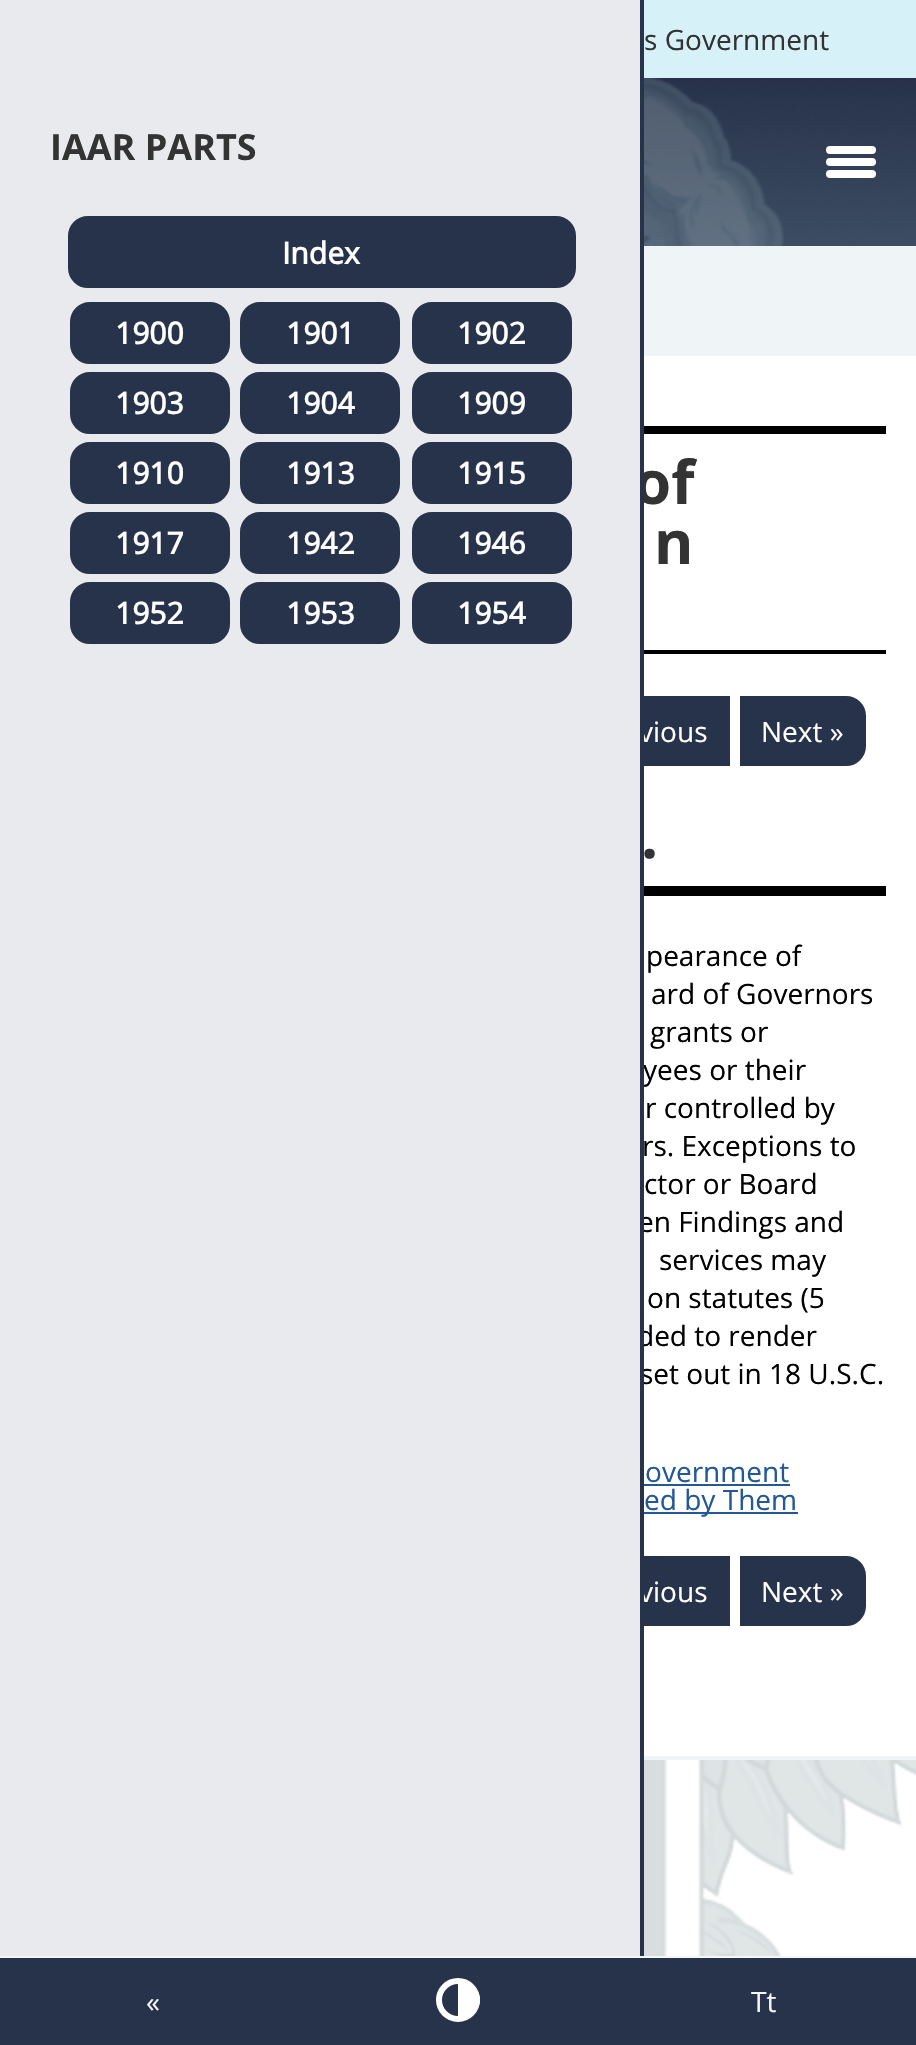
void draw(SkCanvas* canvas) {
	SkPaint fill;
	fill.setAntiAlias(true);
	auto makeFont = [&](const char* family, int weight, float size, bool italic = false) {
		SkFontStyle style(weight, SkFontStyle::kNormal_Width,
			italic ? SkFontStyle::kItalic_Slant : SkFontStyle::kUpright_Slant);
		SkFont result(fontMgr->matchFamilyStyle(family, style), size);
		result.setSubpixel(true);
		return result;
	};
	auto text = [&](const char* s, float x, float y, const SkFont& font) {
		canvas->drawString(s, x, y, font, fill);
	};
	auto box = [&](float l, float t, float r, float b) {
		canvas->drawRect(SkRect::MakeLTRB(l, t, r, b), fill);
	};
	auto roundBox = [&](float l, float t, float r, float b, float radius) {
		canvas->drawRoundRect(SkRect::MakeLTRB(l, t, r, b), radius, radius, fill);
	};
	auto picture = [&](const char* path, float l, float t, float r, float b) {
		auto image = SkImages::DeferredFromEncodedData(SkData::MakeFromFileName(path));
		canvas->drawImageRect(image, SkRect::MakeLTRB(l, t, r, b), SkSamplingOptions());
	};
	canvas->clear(0xFFFFFFFF);
	fill.setColor(0xFFD7F1F8);
	box(644, 0, 916, 78);
	picture("image0.png", 644, 78, 916, 246);
	picture("image1.png", 644, 78, 784, 246);
	fill.setColor(0xFFFFFFFF);
	roundBox(826, 158, 876, 166, 4);
	roundBox(826, 146, 876, 154, 4);
	roundBox(826, 170, 876, 178, 4);
	fill.setColor(0xFFEFF4F6);
	box(644, 246, 916, 356);
	fill.setColor(0xFF000000);
	box(644, 426, 886, 434);
	box(644, 650, 886, 654);
	fill.setColor(0xFF27324B);
	box(644, 698, 728, 764);
	fill.setStyle(SkPaint::kStroke_Style);
	fill.setStrokeWidth(2);
	canvas->drawRect(SkRect::MakeLTRB(553, 697, 729, 765), fill);
	fill.setStyle(SkPaint::kFill_Style);
	canvas->drawPath(SkPathBuilder().moveTo(741, 697).lineTo(846, 697).cubicTo(856.5f, 697, 865, 705.5f, 865, 716).lineTo(865, 746).cubicTo(865, 756.5f, 856.5f, 765, 846, 765).lineTo(741, 765).close().detach(), fill);
	fill.setStyle(SkPaint::kStroke_Style);
	canvas->drawPath(SkPathBuilder().moveTo(741, 697).lineTo(846, 697).cubicTo(856.5f, 697, 865, 705.5f, 865, 716).lineTo(865, 746).cubicTo(865, 756.5f, 856.5f, 765, 846, 765).lineTo(741, 765).close().detach(), fill);
	fill.setStyle(SkPaint::kFill_Style);
	fill.setColor(0xFF000000);
	box(644, 886, 886, 896);
	fill.setColor(0xFF225895);
	box(644, 1484, 790, 1486);
	box(644, 1512, 798, 1514);
	fill.setColor(0xFF27324B);
	box(644, 1558, 728, 1624);
	fill.setStyle(SkPaint::kStroke_Style);
	canvas->drawRect(SkRect::MakeLTRB(553, 1557, 729, 1625), fill);
	fill.setStyle(SkPaint::kFill_Style);
	canvas->drawPath(SkPathBuilder().moveTo(741, 1557).lineTo(846, 1557).cubicTo(856.5f, 1557, 865, 1565.5f, 865, 1576).lineTo(865, 1606).cubicTo(865, 1616.5f, 856.5f, 1625, 846, 1625).lineTo(741, 1625).close().detach(), fill);
	fill.setStyle(SkPaint::kStroke_Style);
	canvas->drawPath(SkPathBuilder().moveTo(741, 1557).lineTo(846, 1557).cubicTo(856.5f, 1557, 865, 1565.5f, 865, 1576).lineTo(865, 1606).cubicTo(865, 1616.5f, 856.5f, 1625, 846, 1625).lineTo(741, 1625).close().detach(), fill);
	fill.setStyle(SkPaint::kFill_Style);
	fill.setColor(0xFFEFF4F6);
	box(644, 1756, 916, 1760);
	picture("image2.png", 644, 1760, 916, 1956);
	fill.setColor(0xFF27324B);
	box(0, 1958, 916, 2045);
	fill.setColor(0xFFF6F6F6);
	box(0, 1956, 916, 1958);
	fill.setStyle(SkPaint::kStroke_Style);
	fill.setStrokeWidth(6);
	fill.setColor(0xFFFFFFFF);
	canvas->drawCircle(458, 2000, 19, fill);
	fill.setStyle(SkPaint::kFill_Style);
	canvas->drawPath(SkPathBuilder().moveTo(458, 1984).lineTo(464, 1984).cubicTo(473, 1984, 480, 1991, 480, 2000).cubicTo(480, 2009, 473, 2016, 464, 2016).lineTo(458, 2016).close().detach(), fill);
	auto font1 = makeFont("Open Sans", 400, 28);
	fill.setColor(0xFF333333);
	text("s Government", 644, 50, font1);
	auto font2 = makeFont("Open Sans", 700, 60);
	text("of", 634, 504, font2);
	text("n", 654, 564, font2);
	fill.setColor(0xFFFFFFFF);
	text("vious", 639, 742, font1);
	text("Next »", 761, 742, font1);
	fill.setColor(0xFF333333);
	text(".", 641, 858, font2);
	fill.setColor(0xFF000000);
	text("pearance of", 646, 966, font1);
	text("ard of Governors", 651, 1004, font1);
	text("grants or", 650, 1042, font1);
	text("yees or their", 643, 1080, font1);
	text("r controlled by", 645, 1118, font1);
	text("rs. Exceptions to", 642, 1156, font1);
	text("ctor or Board", 644, 1194, font1);
	text("en Findings and", 638, 1232, font1);
	text("services may", 659, 1270, font1);
	text("on statutes (5", 647, 1308, font1);
	text("ded to render", 637, 1346, font1);
	text("set out in 18 U.S.C.", 640, 1384, font1);
	fill.setColor(0xFF225895);
	text("overnment", 645, 1482, font1);
	text("ed by Them", 644, 1510, font1);
	fill.setColor(0xFFFFFFFF);
	text("vious", 639, 1602, font1);
	fill.setColor(0xFFE9EAED);
	box(0, 0, 640, 1956);
	fill.setColor(0xFF27324B);
	canvas->drawRoundRect(SkRect::MakeLTRB(413, 583, 571, 643), 19, 19, fill);
	fill.setStyle(SkPaint::kStroke_Style);
	fill.setStrokeWidth(2);
	canvas->drawRoundRect(SkRect::MakeLTRB(413, 583, 571, 643), 19, 19, fill);
	auto font3 = makeFont("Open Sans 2", 700, 30);
	fill.setStyle(SkPaint::kFill_Style);
	fill.setColor(0xFFFFFFFF);
	text("1954", 457, 624, font3);
	fill.setColor(0xFF27324B);
	canvas->drawRoundRect(SkRect::MakeLTRB(241, 583, 399, 643), 19, 19, fill);
	fill.setStyle(SkPaint::kStroke_Style);
	canvas->drawRoundRect(SkRect::MakeLTRB(241, 583, 399, 643), 19, 19, fill);
	fill.setStyle(SkPaint::kFill_Style);
	fill.setColor(0xFFFFFFFF);
	text("1953", 286, 624, font3);
	fill.setColor(0xFF27324B);
	canvas->drawRoundRect(SkRect::MakeLTRB(71, 583, 229, 643), 19, 19, fill);
	fill.setStyle(SkPaint::kStroke_Style);
	canvas->drawRoundRect(SkRect::MakeLTRB(71, 583, 229, 643), 19, 19, fill);
	fill.setStyle(SkPaint::kFill_Style);
	fill.setColor(0xFFFFFFFF);
	text("1952", 115, 624, font3);
	fill.setColor(0xFF27324B);
	canvas->drawRoundRect(SkRect::MakeLTRB(413, 513, 571, 573), 19, 19, fill);
	fill.setStyle(SkPaint::kStroke_Style);
	canvas->drawRoundRect(SkRect::MakeLTRB(413, 513, 571, 573), 19, 19, fill);
	fill.setStyle(SkPaint::kFill_Style);
	fill.setColor(0xFFFFFFFF);
	text("1946", 457, 554, font3);
	fill.setColor(0xFF27324B);
	canvas->drawRoundRect(SkRect::MakeLTRB(241, 513, 399, 573), 19, 19, fill);
	fill.setStyle(SkPaint::kStroke_Style);
	canvas->drawRoundRect(SkRect::MakeLTRB(241, 513, 399, 573), 19, 19, fill);
	fill.setStyle(SkPaint::kFill_Style);
	fill.setColor(0xFFFFFFFF);
	text("1942", 286, 554, font3);
	fill.setColor(0xFF27324B);
	canvas->drawRoundRect(SkRect::MakeLTRB(71, 513, 229, 573), 19, 19, fill);
	fill.setStyle(SkPaint::kStroke_Style);
	canvas->drawRoundRect(SkRect::MakeLTRB(71, 513, 229, 573), 19, 19, fill);
	fill.setStyle(SkPaint::kFill_Style);
	fill.setColor(0xFFFFFFFF);
	text("1917", 115, 554, font3);
	fill.setColor(0xFF27324B);
	canvas->drawRoundRect(SkRect::MakeLTRB(413, 443, 571, 503), 19, 19, fill);
	fill.setStyle(SkPaint::kStroke_Style);
	canvas->drawRoundRect(SkRect::MakeLTRB(413, 443, 571, 503), 19, 19, fill);
	fill.setStyle(SkPaint::kFill_Style);
	fill.setColor(0xFFFFFFFF);
	text("1915", 457, 484, font3);
	fill.setColor(0xFF27324B);
	canvas->drawRoundRect(SkRect::MakeLTRB(241, 443, 399, 503), 19, 19, fill);
	fill.setStyle(SkPaint::kStroke_Style);
	canvas->drawRoundRect(SkRect::MakeLTRB(241, 443, 399, 503), 19, 19, fill);
	fill.setStyle(SkPaint::kFill_Style);
	fill.setColor(0xFFFFFFFF);
	text("1913", 286, 484, font3);
	fill.setColor(0xFF27324B);
	canvas->drawRoundRect(SkRect::MakeLTRB(71, 443, 229, 503), 19, 19, fill);
	fill.setStyle(SkPaint::kStroke_Style);
	canvas->drawRoundRect(SkRect::MakeLTRB(71, 443, 229, 503), 19, 19, fill);
	fill.setStyle(SkPaint::kFill_Style);
	fill.setColor(0xFFFFFFFF);
	text("1910", 115, 484, font3);
	fill.setColor(0xFF27324B);
	canvas->drawRoundRect(SkRect::MakeLTRB(413, 373, 571, 433), 19, 19, fill);
	fill.setStyle(SkPaint::kStroke_Style);
	canvas->drawRoundRect(SkRect::MakeLTRB(413, 373, 571, 433), 19, 19, fill);
	fill.setStyle(SkPaint::kFill_Style);
	fill.setColor(0xFFFFFFFF);
	text("1909", 457, 414, font3);
	fill.setColor(0xFF27324B);
	canvas->drawRoundRect(SkRect::MakeLTRB(241, 373, 399, 433), 19, 19, fill);
	fill.setStyle(SkPaint::kStroke_Style);
	canvas->drawRoundRect(SkRect::MakeLTRB(241, 373, 399, 433), 19, 19, fill);
	fill.setStyle(SkPaint::kFill_Style);
	fill.setColor(0xFFFFFFFF);
	text("1904", 286, 414, font3);
	fill.setColor(0xFF27324B);
	canvas->drawRoundRect(SkRect::MakeLTRB(71, 373, 229, 433), 19, 19, fill);
	fill.setStyle(SkPaint::kStroke_Style);
	canvas->drawRoundRect(SkRect::MakeLTRB(71, 373, 229, 433), 19, 19, fill);
	fill.setStyle(SkPaint::kFill_Style);
	fill.setColor(0xFFFFFFFF);
	text("1903", 115, 414, font3);
	fill.setColor(0xFF27324B);
	canvas->drawRoundRect(SkRect::MakeLTRB(413, 303, 571, 363), 19, 19, fill);
	fill.setStyle(SkPaint::kStroke_Style);
	canvas->drawRoundRect(SkRect::MakeLTRB(413, 303, 571, 363), 19, 19, fill);
	fill.setStyle(SkPaint::kFill_Style);
	fill.setColor(0xFFFFFFFF);
	text("1902", 457, 344, font3);
	fill.setColor(0xFF27324B);
	canvas->drawRoundRect(SkRect::MakeLTRB(241, 303, 399, 363), 19, 19, fill);
	fill.setStyle(SkPaint::kStroke_Style);
	canvas->drawRoundRect(SkRect::MakeLTRB(241, 303, 399, 363), 19, 19, fill);
	fill.setStyle(SkPaint::kFill_Style);
	fill.setColor(0xFFFFFFFF);
	text("1901", 286, 344, font3);
	fill.setColor(0xFF27324B);
	canvas->drawRoundRect(SkRect::MakeLTRB(71, 303, 229, 363), 19, 19, fill);
	fill.setStyle(SkPaint::kStroke_Style);
	canvas->drawRoundRect(SkRect::MakeLTRB(71, 303, 229, 363), 19, 19, fill);
	fill.setStyle(SkPaint::kFill_Style);
	fill.setColor(0xFFFFFFFF);
	text("1900", 115, 344, font3);
	fill.setColor(0xFF27324B);
	canvas->drawRoundRect(SkRect::MakeLTRB(69, 217, 575, 287), 19, 19, fill);
	fill.setStyle(SkPaint::kStroke_Style);
	canvas->drawRoundRect(SkRect::MakeLTRB(69, 217, 575, 287), 19, 19, fill);
	fill.setStyle(SkPaint::kFill_Style);
	fill.setColor(0xFFFFFFFF);
	text("Index", 282, 264, font3);
	auto font4 = makeFont("Open Sans", 700, 36);
	fill.setColor(0xFF333333);
	text("IAAR PARTS", 50, 160, font4);
	fill.setColor(0xFF27324B);
	box(640, 0, 644, 1956);
	fill.setColor(0xFFFFFFFF);
	text("Next »", 761, 1602, font1);
	fill.setColor(0xFFF6F6F6);
	text("«", 146, 2012, font1);
	text("Tt", 751, 2012, font1);
}
